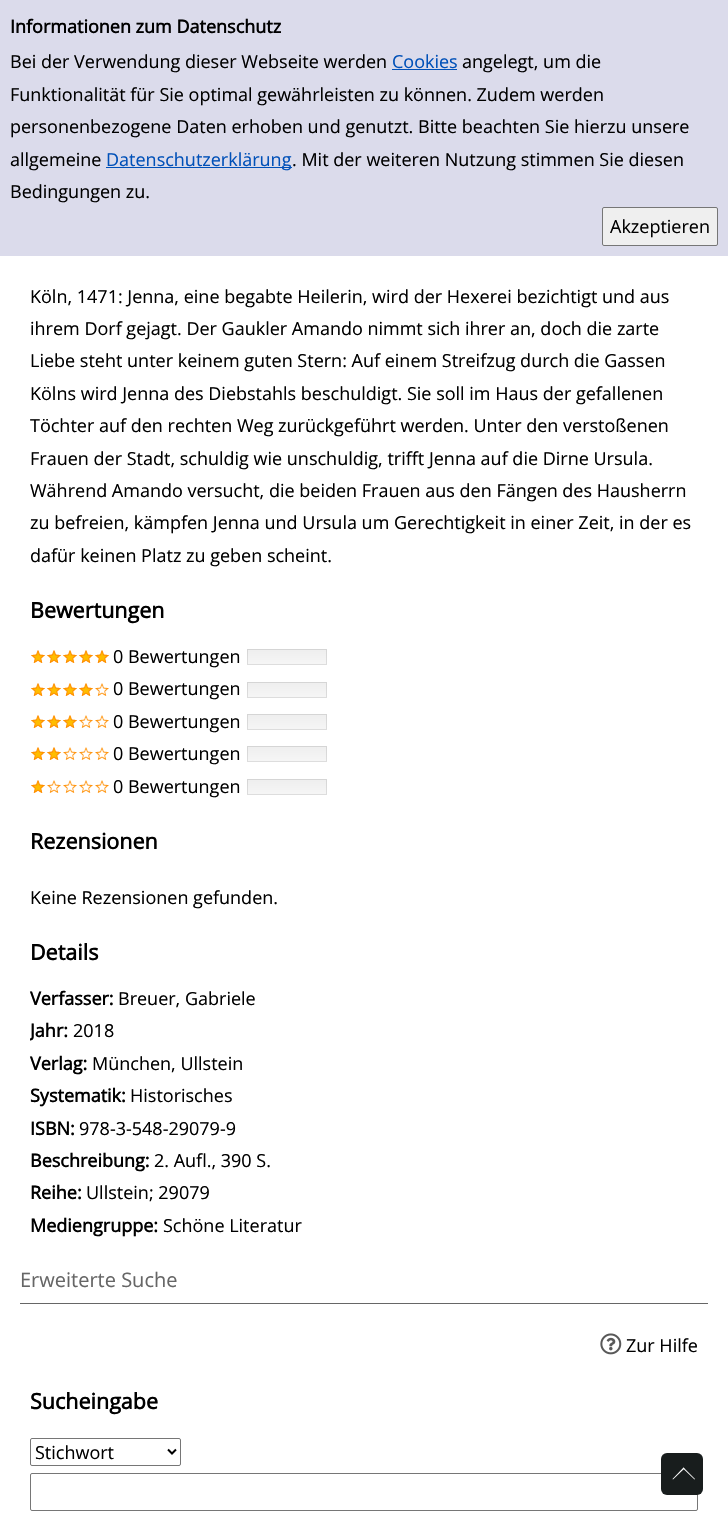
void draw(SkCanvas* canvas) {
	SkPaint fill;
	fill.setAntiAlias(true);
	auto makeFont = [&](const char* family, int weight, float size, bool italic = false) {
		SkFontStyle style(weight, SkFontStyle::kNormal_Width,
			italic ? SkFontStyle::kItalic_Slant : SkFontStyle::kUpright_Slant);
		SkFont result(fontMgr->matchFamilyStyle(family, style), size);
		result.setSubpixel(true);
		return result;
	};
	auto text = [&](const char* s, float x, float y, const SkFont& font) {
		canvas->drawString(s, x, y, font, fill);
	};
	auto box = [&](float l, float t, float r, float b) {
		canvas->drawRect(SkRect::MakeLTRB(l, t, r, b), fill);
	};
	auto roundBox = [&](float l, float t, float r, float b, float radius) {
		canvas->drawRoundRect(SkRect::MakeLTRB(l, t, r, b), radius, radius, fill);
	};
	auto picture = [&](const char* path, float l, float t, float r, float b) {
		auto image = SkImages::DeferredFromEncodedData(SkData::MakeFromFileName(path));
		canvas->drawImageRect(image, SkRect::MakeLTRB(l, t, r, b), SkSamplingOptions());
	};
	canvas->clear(0xFFFFFFFF);
	fill.setColor(0xD9D5D5E7);
	box(0, 0, 728, 256);
	fill.setColor(0xFF0050B8);
	box(392, 69, 457, 70);
	box(106, 167, 292, 168);
	fill.setColor(0xFFEFEFEF);
	canvas->drawRoundRect(SkRect::MakeLTRB(602.5f, 207.5f, 717.5f, 245.5f), 1.5f, 1.5f, fill);
	fill.setStyle(SkPaint::kStroke_Style);
	fill.setStrokeWidth(1);
	fill.setColor(0xFF767676);
	canvas->drawRoundRect(SkRect::MakeLTRB(602.5f, 207.5f, 717.5f, 245.5f), 1.5f, 1.5f, fill);
	picture("image0.png", 31, 650, 109, 663);
	picture("image1.png", 31, 650, 109, 663);
	picture("image0.png", 31, 683, 109, 696);
	picture("image2.png", 31, 683, 93, 696);
	picture("image0.png", 31, 715, 109, 728);
	picture("image3.png", 31, 715, 77, 728);
	picture("image0.png", 31, 747, 109, 760);
	picture("image4.png", 31, 747, 61, 760);
	picture("image0.png", 31, 780, 109, 793);
	picture("image5.png", 31, 780, 45, 793);
	fill.setStyle(SkPaint::kFill_Style);
	{
		const SkColor colors[] = {0xFFEEEEEE, 0xFFF6F6F6};
		const float stops[] = {0, 1};
		const SkPoint ends[] = {{287, 649}, {287, 665}};
		fill.setShader(SkGradientShader::MakeLinear(ends, colors, stops, 2, SkTileMode::kClamp));
		fill.setAlpha(255);
	}
	box(247, 649, 327, 665);
	fill.setStyle(SkPaint::kStroke_Style);
	fill.setShader(nullptr);
	fill.setColor(0x1A000000);
	canvas->drawRect(SkRect::MakeLTRB(247.5f, 649.5f, 326.5f, 664.5f), fill);
	fill.setStyle(SkPaint::kFill_Style);
	{
		const SkColor colors[] = {0xFFEEEEEE, 0xFFF6F6F6};
		const float stops[] = {0, 1};
		const SkPoint ends[] = {{287, 682}, {287, 698}};
		fill.setShader(SkGradientShader::MakeLinear(ends, colors, stops, 2, SkTileMode::kClamp));
		fill.setAlpha(255);
	}
	box(247, 682, 327, 698);
	fill.setStyle(SkPaint::kStroke_Style);
	fill.setShader(nullptr);
	fill.setColor(0x1A000000);
	canvas->drawRect(SkRect::MakeLTRB(247.5f, 682.5f, 326.5f, 697.5f), fill);
	fill.setStyle(SkPaint::kFill_Style);
	{
		const SkColor colors[] = {0xFFEEEEEE, 0xFFF6F6F6};
		const float stops[] = {0, 1};
		const SkPoint ends[] = {{287, 714}, {287, 730}};
		fill.setShader(SkGradientShader::MakeLinear(ends, colors, stops, 2, SkTileMode::kClamp));
		fill.setAlpha(255);
	}
	box(247, 714, 327, 730);
	fill.setStyle(SkPaint::kStroke_Style);
	fill.setShader(nullptr);
	fill.setColor(0x1A000000);
	canvas->drawRect(SkRect::MakeLTRB(247.5f, 714.5f, 326.5f, 729.5f), fill);
	fill.setStyle(SkPaint::kFill_Style);
	{
		const SkColor colors[] = {0xFFEEEEEE, 0xFFF6F6F6};
		const float stops[] = {0, 1};
		const SkPoint ends[] = {{287, 746}, {287, 762}};
		fill.setShader(SkGradientShader::MakeLinear(ends, colors, stops, 2, SkTileMode::kClamp));
		fill.setAlpha(255);
	}
	box(247, 746, 327, 762);
	fill.setStyle(SkPaint::kStroke_Style);
	fill.setShader(nullptr);
	fill.setColor(0x1A000000);
	canvas->drawRect(SkRect::MakeLTRB(247.5f, 746.5f, 326.5f, 761.5f), fill);
	fill.setStyle(SkPaint::kFill_Style);
	{
		const SkColor colors[] = {0xFFEEEEEE, 0xFFF6F6F6};
		const float stops[] = {0, 1};
		const SkPoint ends[] = {{287, 779}, {287, 795}};
		fill.setShader(SkGradientShader::MakeLinear(ends, colors, stops, 2, SkTileMode::kClamp));
		fill.setAlpha(255);
	}
	box(247, 779, 327, 795);
	fill.setStyle(SkPaint::kStroke_Style);
	fill.setShader(nullptr);
	fill.setColor(0x1A000000);
	canvas->drawRect(SkRect::MakeLTRB(247.5f, 779.5f, 326.5f, 794.5f), fill);
	fill.setStyle(SkPaint::kFill_Style);
	fill.setColor(0xFF666666);
	box(20, 1303, 708, 1304);
	picture("image6.png", 600, 1333, 622, 1355);
	fill.setStyle(SkPaint::kStroke_Style);
	fill.setColor(0xFF767676);
	canvas->drawRoundRect(SkRect::MakeLTRB(30.5f, 1438.5f, 180.5f, 1465.5f), 1.5f, 1.5f, fill);
	fill.setStrokeWidth(2);
	fill.setColor(0xFF000000);
	canvas->drawPath(SkPathBuilder().moveTo(168, 1449.5f).lineTo(172, 1453.5f).lineTo(176, 1449.5f).detach(), fill);
	fill.setStrokeWidth(1);
	fill.setColor(0xFF767676);
	canvas->drawRoundRect(SkRect::MakeLTRB(30.5f, 1473.5f, 697.5f, 1510.5f), 1.5f, 1.5f, fill);
	fill.setStyle(SkPaint::kFill_Style);
	fill.setColor(0xFF181D1D);
	roundBox(661, 1453, 703, 1495, 6);
	fill.setColor(0xFFFFFFFF);
	canvas->drawPath(SkPathBuilder().moveTo(673, 1479.5f).lineTo(672.5f, 1479).lineTo(683.5f, 1467.5f).lineTo(684.5f, 1468.5f).close().detach(), fill);
	canvas->drawPath(SkPathBuilder().moveTo(694.5f, 1479.5f).lineTo(683, 1468.5f).lineTo(683.5f, 1467.5f).lineTo(695, 1479).close().detach(), fill);
	auto font1 = makeFont("Open Sans", 700, 18);
	fill.setColor(0xFF000000);
	text("Informationen zum Datenschutz", 10, 33, font1);
	auto font2 = makeFont("Open Sans", 400, 18);
	text("Bei der Verwendung dieser Webseite werden", 10, 68, font2);
	fill.setColor(0xFF0050B8);
	text("Cookies", 392, 68, font2);
	fill.setColor(0xFF000000);
	text("angelegt, um die", 462, 68, font2);
	text("Funktionalität für Sie optimal gewährleisten zu können. Zudem werden", 10, 101, font2);
	text("personenbezogene Daten erhoben und genutzt. Bitte beachten Sie hierzu unsere", 10, 133, font2);
	text("allgemeine", 10, 166, font2);
	fill.setColor(0xFF0050B8);
	text("Datenschutzerklärung", 106, 166, font2);
	fill.setColor(0xFF000000);
	text(". Mit der weiteren Nutzung stimmen Sie diesen", 292, 166, font2);
	text("Bedingungen zu.", 10, 198, font2);
	text("Akzeptieren", 610, 233, font2);
	text("Köln, 1471: Jenna, eine begabte Heilerin, wird der Hexerei bezichtigt und aus", 30, 303, font2);
	text("ihrem Dorf gejagt. Der Gaukler Amando nimmt sich ihrer an, doch die zarte", 30, 335, font2);
	text("Liebe steht unter keinem guten Stern: Auf einem Streifzug durch die Gassen", 30, 367, font2);
	text("Kölns wird Jenna des Diebstahls beschuldigt. Sie soll im Haus der gefallenen", 30, 400, font2);
	text("Töchter auf den rechten Weg zurückgeführt werden. Unter den verstoßenen", 30, 432, font2);
	text("Frauen der Stadt, schuldig wie unschuldig, trifft Jenna auf die Dirne Ursula.", 30, 465, font2);
	text("Während Amando versucht, die beiden Frauen aus den Fängen des Hausherrn", 30, 497, font2);
	text("zu befreien, kämpfen Jenna und Ursula um Gerechtigkeit in einer Zeit, in der es", 30, 529, font2);
	text("dafür keinen Platz zu geben scheint.", 30, 562, font2);
	auto font3 = makeFont("Open Sans", 700, 21.5f);
	text("Bewertungen", 30, 618, font3);
	text("0 Bewertungen", 113, 663, font2);
	text("0 Bewertungen", 113, 695, font2);
	text("0 Bewertungen", 113, 728, font2);
	text("0 Bewertungen", 113, 760, font2);
	text("0 Bewertungen", 113, 793, font2);
	text("Rezensionen", 30, 849, font3);
	text("Keine Rezensionen gefunden.", 30, 904, font2);
	text("Details", 30, 960, font3);
	text("Verfasser:", 30, 1005, font1);
	text("Breuer, Gabriele", 118, 1005, font2);
	canvas->save();
	canvas->clipRect(SkRect::MakeLTRB(30, 1014, 698, 1047));
	text("Jahr:", 30, 1037, font1);
	canvas->restore();
	text("2018", 73, 1037, font2);
	text("Verlag:", 30, 1070, font1);
	text("München, Ullstein", 92, 1070, font2);
	text("Systematik:", 30, 1102, font1);
	text("Historisches", 130, 1102, font2);
	text("ISBN:", 30, 1135, font1);
	text("978-3-548-29079-9", 79, 1135, font2);
	text("Beschreibung:", 30, 1167, font1);
	text("2. Aufl., 390 S.", 154, 1167, font2);
	text("Reihe:", 30, 1199, font1);
	text("Ullstein; 29079", 86, 1199, font2);
	text("Mediengruppe:", 30, 1232, font1);
	text("Schöne Literatur", 163, 1232, font2);
	auto font4 = makeFont("Open Sans", 400, 20);
	fill.setColor(0xFF666666);
	text("Erweiterte Suche", 20, 1287, font4);
	fill.setColor(0xFF000000);
	text("Zur Hilfe", 626, 1352, font2);
	text("Sucheingabe", 30, 1409, font3);
	text("Stichwort", 35, 1459, font2);
}
